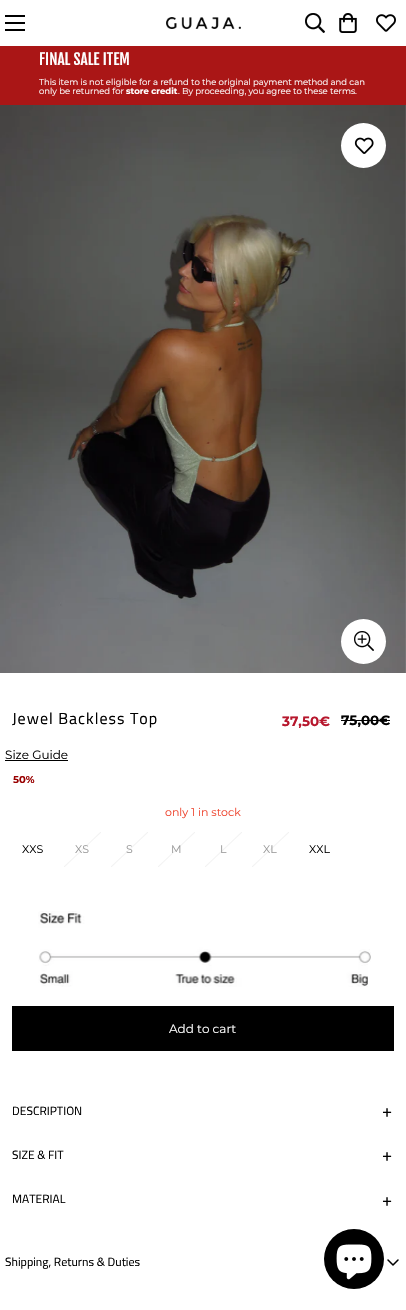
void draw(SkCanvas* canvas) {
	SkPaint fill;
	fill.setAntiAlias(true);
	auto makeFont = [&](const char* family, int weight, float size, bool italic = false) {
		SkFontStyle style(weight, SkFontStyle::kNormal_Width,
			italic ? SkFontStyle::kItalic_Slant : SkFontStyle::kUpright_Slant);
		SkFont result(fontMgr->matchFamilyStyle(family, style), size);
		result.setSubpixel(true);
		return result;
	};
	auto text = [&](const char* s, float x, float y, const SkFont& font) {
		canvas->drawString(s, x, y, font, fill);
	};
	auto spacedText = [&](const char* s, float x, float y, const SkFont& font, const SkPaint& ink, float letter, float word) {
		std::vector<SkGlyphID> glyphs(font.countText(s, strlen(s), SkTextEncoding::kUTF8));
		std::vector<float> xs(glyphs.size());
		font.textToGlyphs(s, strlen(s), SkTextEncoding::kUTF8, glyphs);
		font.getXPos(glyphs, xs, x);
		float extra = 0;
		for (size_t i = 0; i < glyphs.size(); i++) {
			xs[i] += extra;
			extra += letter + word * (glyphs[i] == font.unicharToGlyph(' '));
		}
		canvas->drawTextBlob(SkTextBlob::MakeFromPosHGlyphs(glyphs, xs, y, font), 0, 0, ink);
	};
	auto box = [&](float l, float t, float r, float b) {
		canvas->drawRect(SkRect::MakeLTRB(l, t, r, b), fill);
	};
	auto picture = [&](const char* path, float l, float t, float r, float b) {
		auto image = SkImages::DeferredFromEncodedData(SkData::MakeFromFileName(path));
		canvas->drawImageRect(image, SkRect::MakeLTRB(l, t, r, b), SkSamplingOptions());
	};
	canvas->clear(0xFFFFFFFF);
	fill.setColor(0xFF000000);
	box(5, 22, 25, 24);
	box(5, 15, 25, 17);
	box(5, 29, 25, 31);
	picture("image0.png", 166, 17, 241, 29);
	picture("image1.png", 305, 13, 325, 33);
	picture("image2.png", 339, 13, 357, 33);
	picture("image3.png", 376, 14, 396, 32);
	fill.setColor(0xFFAA1616);
	box(0, 46, 406, 105);
	picture("image4.png", 0, 105, 406, 673);
	fill.setColor(0xFFFFFFFF);
	canvas->drawCircle(363.5f, 641.5f, 22.5f, fill);
	picture("image5.png", 354, 631, 374, 651);
	canvas->drawCircle(363.5f, 145.5f, 22.5f, fill);
	picture("image6.png", 354, 137, 374, 154);
	fill.setColor(0xFF000000);
	box(341, 720, 390, 721);
	box(5, 760, 68, 761);
	{
		const SkColor colors[] = {0x00F2F2F2, 0xFFF2F2F2, 0x00F2F2F2};
		const float stops[] = {0.48f, 0.5f, 0.52f};
		const SkPoint ends[] = {{65, 831}, {100, 868}};
		fill.setShader(SkGradientShader::MakeLinear(ends, colors, stops, 3, SkTileMode::kClamp));
		fill.setAlpha(255);
	}
	box(64, 832, 101, 867);
	{
		const SkColor colors[] = {0x00F2F2F2, 0xFFF2F2F2, 0x00F2F2F2};
		const float stops[] = {0.48f, 0.5f, 0.52f};
		const SkPoint ends[] = {{112, 831}, {147, 868}};
		fill.setShader(SkGradientShader::MakeLinear(ends, colors, stops, 3, SkTileMode::kClamp));
		fill.setAlpha(255);
	}
	box(111, 832, 148, 867);
	{
		const SkColor colors[] = {0x00F2F2F2, 0xFFF2F2F2, 0x00F2F2F2};
		const float stops[] = {0.48f, 0.5f, 0.52f};
		const SkPoint ends[] = {{159, 831}, {194, 868}};
		fill.setShader(SkGradientShader::MakeLinear(ends, colors, stops, 3, SkTileMode::kClamp));
		fill.setAlpha(255);
	}
	box(158, 832, 195, 867);
	{
		const SkColor colors[] = {0x00F2F2F2, 0xFFF2F2F2, 0x00F2F2F2};
		const float stops[] = {0.48f, 0.5f, 0.52f};
		const SkPoint ends[] = {{206, 831}, {241, 868}};
		fill.setShader(SkGradientShader::MakeLinear(ends, colors, stops, 3, SkTileMode::kClamp));
		fill.setAlpha(255);
	}
	box(205, 832, 242, 867);
	{
		const SkColor colors[] = {0x00F2F2F2, 0xFFF2F2F2, 0x00F2F2F2};
		const float stops[] = {0.48f, 0.5f, 0.52f};
		const SkPoint ends[] = {{253, 831}, {288, 868}};
		fill.setShader(SkGradientShader::MakeLinear(ends, colors, stops, 3, SkTileMode::kClamp));
		fill.setAlpha(255);
	}
	box(252, 832, 289, 867);
	picture("image7.png", 38, 911, 371, 987);
	fill.setShader(nullptr);
	fill.setColor(0xFF000000);
	box(12, 1006, 394, 1051);
	picture("image8.png", 387, 1259, 399, 1266);
	canvas->drawCircle(354, 1259, 30, fill);
	picture("image9.png", 336, 1244, 372, 1280);
	auto font1 = makeFont("Fjalla One", 400, 15.25f);
	fill.setColor(0xFFFFFFFF);
	text("FINAL SALE ITEM", 39, 65, font1);
	auto font2 = makeFont("Montserrat", 400, 8.5f);
	text("This item is not eligible for a refund to the original payment method and can", 39, 85, font2);
	text("only be returned for", 39, 94, font2);
	auto font3 = makeFont("Montserrat", 700, 8.5f);
	text("store credit", 126, 94, font3);
	text(". By proceeding, you agree to these terms.", 178, 94, font2);
	auto font4 = makeFont("Titillium Web", 400, 16);
	fill.setColor(0xFF000000);
	spacedText("Jewel Backless Top", 12, 724, font4, fill, 1, 0);
	auto font5 = makeFont("Montserrat", 700, 13.5f);
	fill.setColor(0xFFB7172D);
	text("37,50€", 282, 726, font5);
	fill.setColor(0xFF000000);
	text("75,00€", 341, 725, font5);
	auto font6 = makeFont("Montserrat", 400, 12);
	text("Size Guide", 5, 759, font6);
	auto font7 = makeFont("Montserrat", 700, 10);
	fill.setColor(0xFF990000);
	text("50%", 13, 783, font7);
	auto font8 = makeFont("Montserrat", 400, 11);
	fill.setColor(0xFFEE442E);
	text("only 1 in stock", 165, 816, font8);
	fill.setColor(0xFF000000);
	text("XXS", 22, 853, font8);
	fill.setColor(0xFF999999);
	text("XS", 75, 853, font8);
	text("S", 126, 853, font8);
	text("M", 171, 853, font8);
	text("L", 220, 853, font8);
	text("XL", 263, 853, font8);
	fill.setColor(0xFF000000);
	text("XXL", 309, 853, font8);
	fill.setColor(0xFFFFFFFF);
	text("Add to cart", 169, 1033, font6);
	auto font9 = makeFont("Titillium Web", 400, 12);
	fill.setColor(0xFF000000);
	text("DESCRIPTION", 12, 1115, font9);
	auto font10 = makeFont("Titillium Web", 400, 18);
	spacedText("+", 382, 1117, font10, fill, 1, 0);
	text("SIZE & FIT", 12, 1159, font9);
	spacedText("+", 382, 1161, font10, fill, 1, 0);
	text("MATERIAL", 12, 1203, font9);
	spacedText("+", 382, 1206, font10, fill, 1, 0);
	text("Shipping, Returns & Duties", 5, 1266, font9);
}
